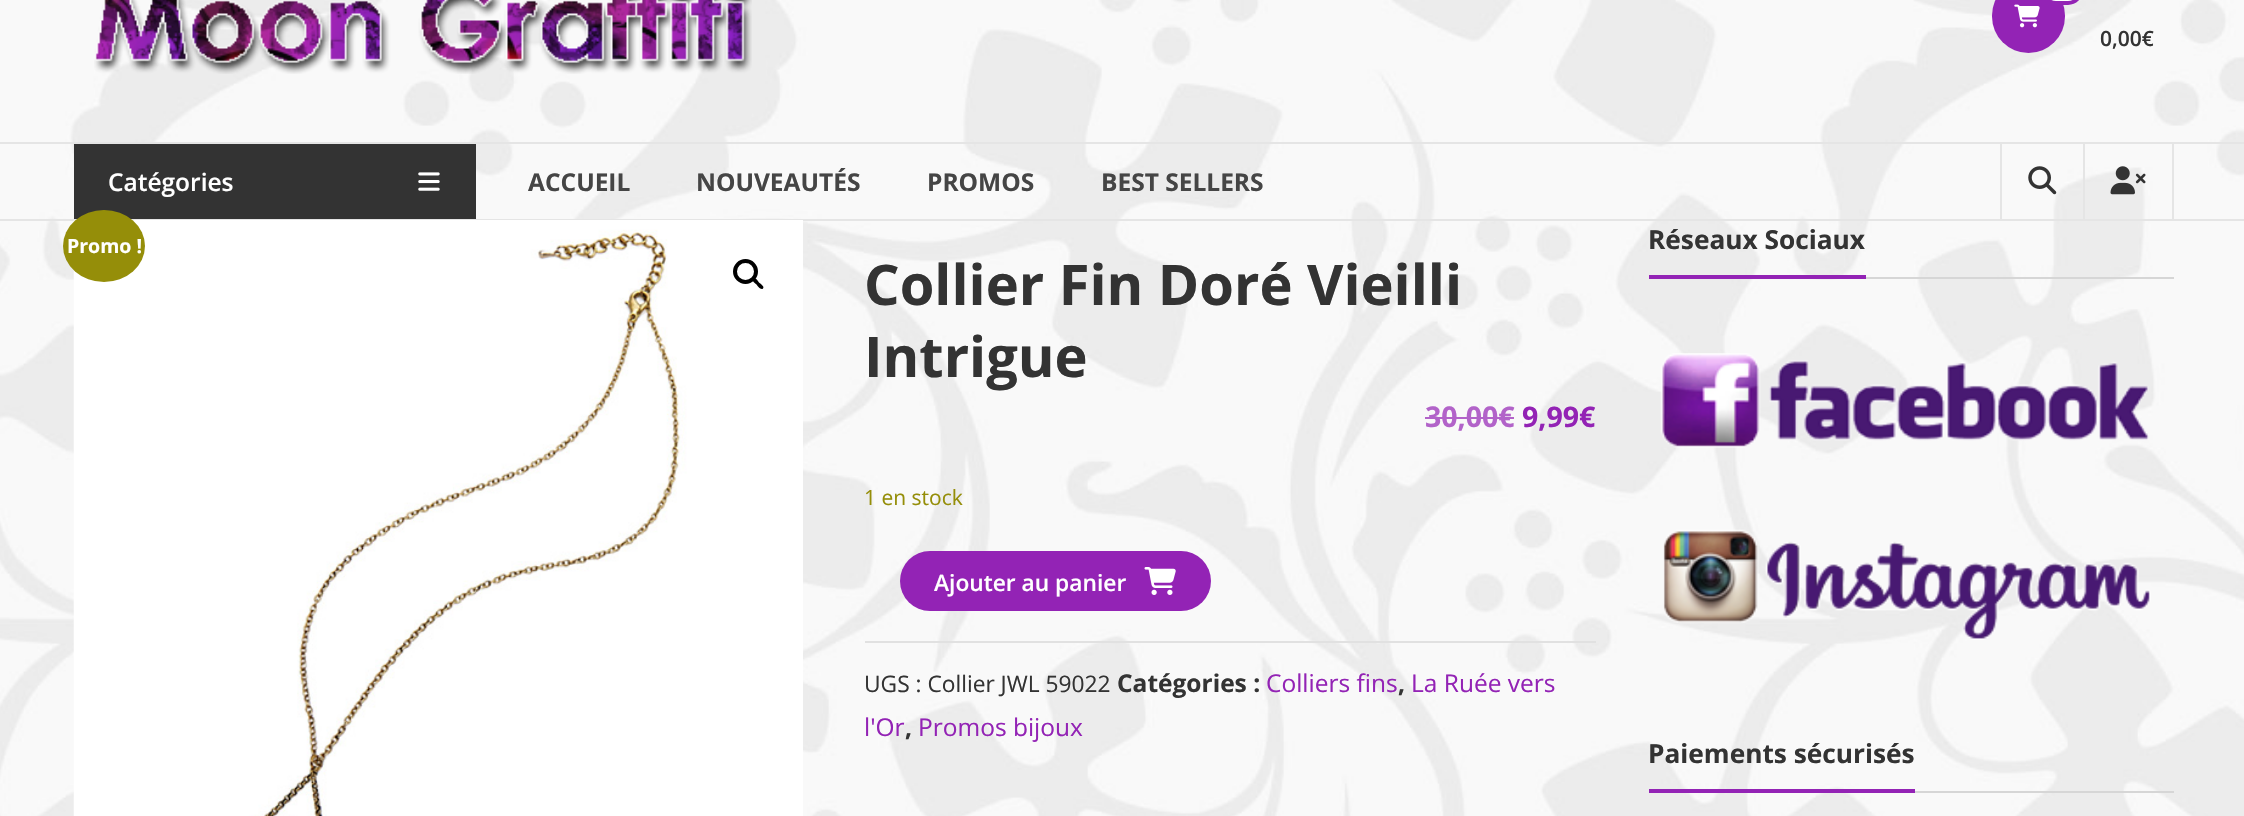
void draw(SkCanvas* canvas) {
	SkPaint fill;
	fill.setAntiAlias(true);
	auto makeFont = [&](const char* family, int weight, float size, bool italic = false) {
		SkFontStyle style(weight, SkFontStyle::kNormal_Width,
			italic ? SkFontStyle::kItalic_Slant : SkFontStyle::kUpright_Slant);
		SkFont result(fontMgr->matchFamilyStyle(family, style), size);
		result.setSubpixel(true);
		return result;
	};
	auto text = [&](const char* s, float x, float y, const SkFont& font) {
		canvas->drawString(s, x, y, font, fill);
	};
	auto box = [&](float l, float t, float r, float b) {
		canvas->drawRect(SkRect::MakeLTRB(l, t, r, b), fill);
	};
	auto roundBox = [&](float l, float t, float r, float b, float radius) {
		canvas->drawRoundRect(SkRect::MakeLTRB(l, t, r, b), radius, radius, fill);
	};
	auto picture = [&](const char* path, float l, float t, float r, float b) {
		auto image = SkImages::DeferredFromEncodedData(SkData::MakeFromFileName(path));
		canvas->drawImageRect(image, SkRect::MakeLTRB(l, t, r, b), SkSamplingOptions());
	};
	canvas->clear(0xFFFFFFFF);
	picture("image0.png", 0, 0, 2244, 816);
	picture("image1.png", 94, 0, 752, 74);
	fill.setColor(0xFF9323B5);
	roundBox(1992, -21, 2065, 53, 36.5f);
	fill.setColor(0xFFFFFFFF);
	canvas->drawRoundRect(SkRect::MakeLTRB(2043, -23, 2081, 3), 19, 19, fill);
	fill.setStyle(SkPaint::kStroke_Style);
	fill.setStrokeWidth(4);
	fill.setColor(0xFF9323B5);
	canvas->drawRoundRect(SkRect::MakeLTRB(2043, -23, 2081, 3), 19, 19, fill);
	picture("image2.png", 2014, 4, 2040, 28);
	fill.setStyle(SkPaint::kFill_Style);
	fill.setColor(0xFFE5E5E5);
	box(0, 142, 2244, 144);
	box(0, 219, 2244, 221);
	fill.setColor(0xFF333333);
	box(74, 144, 476, 219);
	picture("image3.png", 418, 172, 440, 191);
	fill.setColor(0xFFE5E5E5);
	box(2000, 144, 2002, 219);
	picture("image4.png", 2028, 166, 2057, 195);
	box(2172, 144, 2174, 219);
	box(2083, 144, 2085, 219);
	picture("image5.png", 2110, 166, 2146, 195);
	picture("image6.png", 73, 220, 803, 816);
	fill.setStyle(SkPaint::kStroke_Style);
	fill.setColor(0xFF000000);
	canvas->drawCircle(745.5f, 271.5f, 10.5f, fill);
	fill.setStyle(SkPaint::kFill_Style);
	canvas->drawPath(SkPathBuilder().moveTo(753, 278.5f).cubicTo(755, 276.5f, 758, 281, 759, 282.5f).cubicTo(760, 283.5f, 765, 286.5f, 763, 288.5f).cubicTo(761, 290.5f, 757.5f, 286, 756.5f, 284.5f).cubicTo(755.5f, 283.5f, 751, 280.5f, 753, 278.5f).close().detach(), fill);
	fill.setColor(0xFF958E09);
	canvas->drawOval(SkRect::MakeLTRB(63, 210, 145, 282), fill);
	fill.setColor(0xFFB263C9);
	box(1425, 417, 1514, 419);
	fill.setColor(0xFF9323B5);
	roundBox(900, 551, 1211, 611, 30);
	picture("image7.png", 1144, 567, 1176, 595);
	fill.setColor(0xFFE1E1E1);
	box(865, 641, 1596, 643);
	fill.setColor(0xFFD6D6D6);
	box(1866, 277, 2174, 279);
	fill.setColor(0xFF9323B5);
	box(1649, 275, 1866, 279);
	picture("image8.png", 1660, 353, 2149, 448);
	picture("image9.png", 1663, 529, 2151, 640);
	fill.setColor(0xFFD6D6D6);
	box(1915, 791, 2174, 793);
	fill.setColor(0xFF9323B5);
	box(1649, 789, 1915, 793);
	auto font1 = makeFont("Open Sans", 600, 21);
	fill.setColor(0xFF333333);
	text("0,00€", 2100, 46, font1);
	auto font2 = makeFont("Open Sans", 600, 24.5f);
	fill.setColor(0xFFFFFFFF);
	text("Catégories", 108, 191, font2);
	auto font3 = makeFont("Open Sans", 700, 24.5f);
	fill.setColor(0xFF454545);
	text("ACCUEIL", 528, 191, font3);
	text("NOUVEAUTÉS", 696, 191, font3);
	text("PROMOS", 927, 191, font3);
	text("BEST SELLERS", 1101, 191, font3);
	auto font4 = makeFont("Open Sans", 700, 19.5f);
	fill.setColor(0xFFFFFFFF);
	text("Promo !", 67, 253, font4);
	auto font5 = makeFont("Open Sans", 700, 56);
	fill.setColor(0xFF333333);
	text("Collier Fin Doré Vieilli", 864, 305, font5);
	text("Intrigue", 864, 377, font5);
	auto font6 = makeFont("Open Sans", 700, 28.5f);
	fill.setColor(0xFFB263C9);
	text("30,00€", 1425, 427, font6);
	fill.setColor(0xFF9323B5);
	text("9,99€", 1522, 427, font6);
	auto font7 = makeFont("Open Sans", 400, 21);
	fill.setColor(0xFF958E09);
	text("1 en stock", 864, 505, font7);
	auto font8 = makeFont("Open Sans", 600, 22.75f);
	fill.setColor(0xFFFFFFFF);
	text("Ajouter au panier", 934, 591, font8);
	auto font9 = makeFont("Open Sans", 400, 22.75f);
	fill.setColor(0xFF333333);
	text("UGS : Collier JWL 59022", 864, 692, font9);
	text("Catégories :", 1117, 692, font3);
	auto font10 = makeFont("Open Sans", 400, 24.5f);
	fill.setColor(0xFF9323B5);
	text("Colliers fins", 1266, 692, font10);
	fill.setColor(0xFF333333);
	text(",", 1398, 692, font3);
	fill.setColor(0xFF9323B5);
	text("La Ruée vers", 1411, 692, font10);
	text("l'Or", 864, 736, font10);
	fill.setColor(0xFF333333);
	text(",", 905, 736, font3);
	fill.setColor(0xFF9323B5);
	text("Promos bijoux", 918, 736, font10);
	auto font11 = makeFont("Open Sans", 700, 26.25f);
	fill.setColor(0xFF333333);
	text("Réseaux Sociaux", 1648, 249, font11);
	text("Paiements sécurisés", 1648, 763, font11);
}
